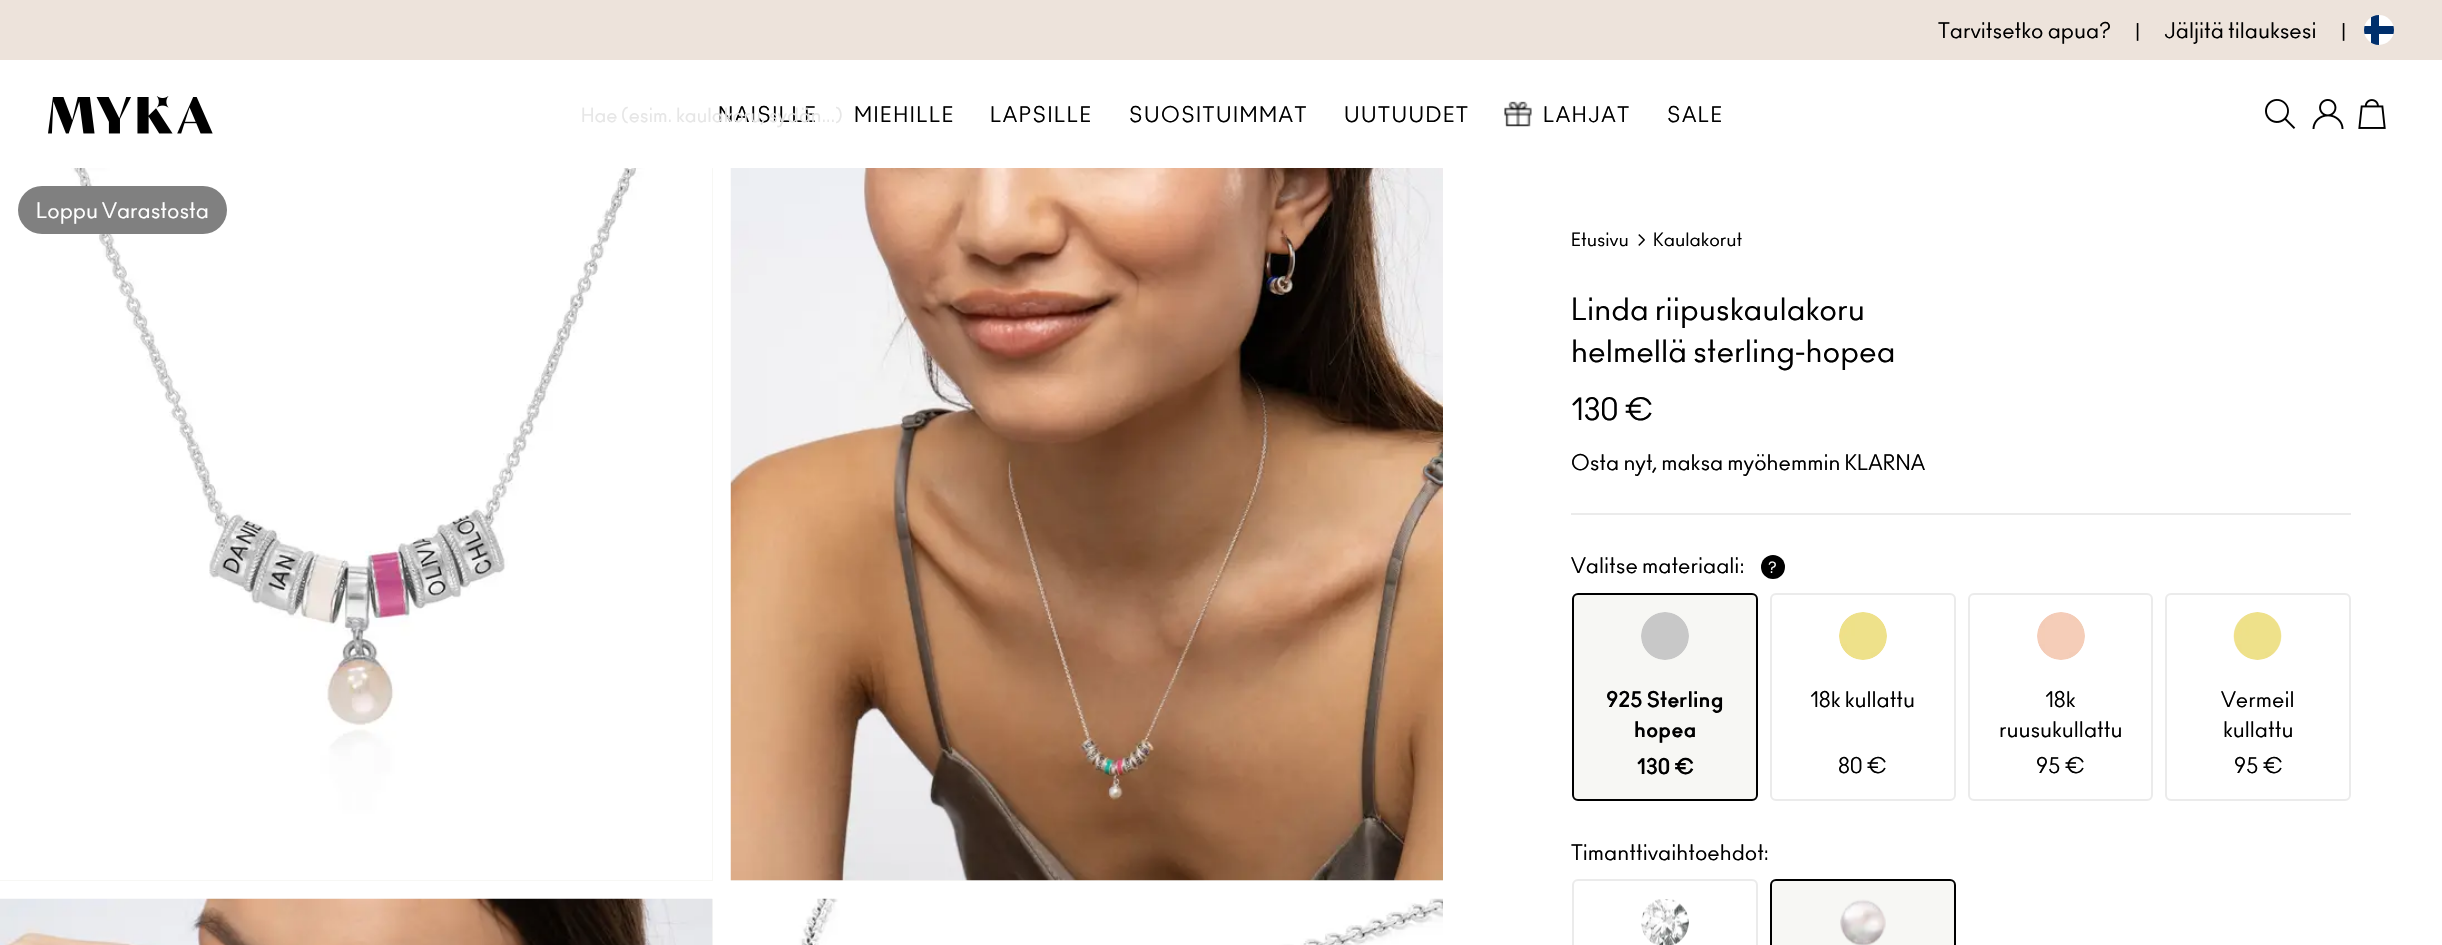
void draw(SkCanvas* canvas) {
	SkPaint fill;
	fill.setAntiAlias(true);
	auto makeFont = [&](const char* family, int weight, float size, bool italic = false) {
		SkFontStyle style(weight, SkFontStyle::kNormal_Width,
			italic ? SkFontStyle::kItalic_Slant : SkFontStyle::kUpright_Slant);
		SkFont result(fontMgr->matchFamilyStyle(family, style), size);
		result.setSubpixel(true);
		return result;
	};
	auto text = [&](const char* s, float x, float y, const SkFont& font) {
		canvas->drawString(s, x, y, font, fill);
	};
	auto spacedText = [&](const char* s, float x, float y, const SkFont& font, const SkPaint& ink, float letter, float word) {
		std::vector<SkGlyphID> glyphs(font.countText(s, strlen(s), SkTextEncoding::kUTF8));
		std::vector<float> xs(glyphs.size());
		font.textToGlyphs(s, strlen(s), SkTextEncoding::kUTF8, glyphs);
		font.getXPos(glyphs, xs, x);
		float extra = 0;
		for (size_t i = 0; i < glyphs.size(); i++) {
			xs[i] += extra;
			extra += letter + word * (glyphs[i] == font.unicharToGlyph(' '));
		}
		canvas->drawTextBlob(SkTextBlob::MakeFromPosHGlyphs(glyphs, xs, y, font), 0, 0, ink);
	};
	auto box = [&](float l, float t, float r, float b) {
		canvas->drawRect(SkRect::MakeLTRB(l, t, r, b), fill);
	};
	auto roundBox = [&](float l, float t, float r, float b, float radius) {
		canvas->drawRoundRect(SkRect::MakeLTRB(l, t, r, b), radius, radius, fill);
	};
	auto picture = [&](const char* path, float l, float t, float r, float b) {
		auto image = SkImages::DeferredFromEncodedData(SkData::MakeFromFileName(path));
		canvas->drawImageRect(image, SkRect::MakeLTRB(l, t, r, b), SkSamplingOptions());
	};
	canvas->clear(0xFFFFFFFF);
	fill.setColor(0xFFEDE3DB);
	box(0, 0, 2442, 60);
	fill.setColor(0xFFFFFFFF);
	canvas->drawCircle(2379, 30, 15, fill);
	canvas->save();
	canvas->clipPath(SkPathBuilder().moveTo(2379, 15).cubicTo(2387.5f, 15, 2394, 21.5f, 2394, 30).cubicTo(2394, 38.5f, 2387.5f, 45, 2379, 45).cubicTo(2370.5f, 45, 2364, 38.5f, 2364, 30).cubicTo(2364, 21.5f, 2370.5f, 15, 2379, 15).close().detach(), true);
	fill.setColor(0xFF002F6C);
	box(2364, 26, 2394, 34);
	box(2371, 15, 2379, 45);
	canvas->restore();
	picture("image0.png", 48, 96, 213, 134);
	picture("image1.png", 1504, 101, 1532, 127);
	picture("image2.png", 2265, 99, 2296, 129);
	picture("image3.png", 2312, 99, 2344, 129);
	picture("image4.png", 2358, 99, 2386, 129);
	fill.setColor(0xFFF7F7F4);
	box(0, 168, 713, 881);
	picture("image5.png", 0, 168, 712, 880);
	box(731, 880, 1443, 881);
	picture("image6.png", 730, 168, 1443, 881);
	box(712, 899, 713, 945);
	picture("image7.png", 0, 898, 713, 945);
	picture("image8.png", 731, 898, 1443, 945);
	fill.setColor(0xFF808080);
	roundBox(18, 186, 227, 234, 24);
	picture("image9.png", 1638, 234, 1645, 246);
	fill.setColor(0xFFEBEBEB);
	box(1571, 513, 2351, 515);
	fill.setColor(0xFF000000);
	canvas->drawCircle(1773, 567, 12, fill);
	fill.setColor(0xFFF7F7F4);
	canvas->drawRoundRect(SkRect::MakeLTRB(1573, 594, 1757, 800), 5, 5, fill);
	fill.setStyle(SkPaint::kStroke_Style);
	fill.setStrokeWidth(2);
	fill.setColor(0xFF000000);
	canvas->drawRoundRect(SkRect::MakeLTRB(1573, 594, 1757, 800), 5, 5, fill);
	picture("image10.png", 1641, 612, 1689, 660);
	fill.setColor(0xFFEBEBEB);
	canvas->drawRoundRect(SkRect::MakeLTRB(1771, 594, 1955, 800), 5, 5, fill);
	picture("image11.png", 1839, 612, 1887, 660);
	canvas->drawRoundRect(SkRect::MakeLTRB(1969, 594, 2152, 800), 5, 5, fill);
	picture("image12.png", 2037, 612, 2085, 660);
	canvas->drawRoundRect(SkRect::MakeLTRB(2166, 594, 2350, 800), 5, 5, fill);
	picture("image13.png", 2233, 612, 2282, 660);
	canvas->drawRoundRect(SkRect::MakeLTRB(1573, 880, 1757, 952), 5, 5, fill);
	picture("image14.png", 1641, 899, 1689, 945);
	fill.setStyle(SkPaint::kFill_Style);
	fill.setColor(0xFFF7F7F4);
	canvas->drawRoundRect(SkRect::MakeLTRB(1771, 880, 1955, 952), 5, 5, fill);
	fill.setStyle(SkPaint::kStroke_Style);
	fill.setColor(0xFF000000);
	canvas->drawRoundRect(SkRect::MakeLTRB(1771, 880, 1955, 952), 5, 5, fill);
	picture("image15.png", 1840, 899, 1886, 945);
	auto font1 = makeFont("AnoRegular", 400, 21);
	fill.setStyle(SkPaint::kFill_Style);
	text("Tarvitsetko apua?", 1938, 38, font1);
	auto font2 = makeFont("Roboto", 400, 21);
	text("|", 2135, 38, font2);
	text("Jäljitä tilauksesi", 2164, 38, font1);
	text("|", 2341, 38, font2);
	spacedText("NAISILLE", 718, 122, font1, fill, 1.5f, 0);
	auto font3 = makeFont("AnoRegular", 400, 18.9f);
	fill.setColor(0xFFE6E6E6);
	text("Hae (esim. kaulakoru, sydän...)", 581, 122, font3);
	fill.setColor(0xFF000000);
	spacedText("MIEHILLE", 854, 122, font1, fill, 1.5f, 0);
	spacedText("LAPSILLE", 990, 122, font1, fill, 1.5f, 0);
	spacedText("SUOSITUIMMAT", 1129, 122, font1, fill, 1.5f, 0);
	spacedText("UUTUUDET", 1344, 122, font1, fill, 1.5f, 0);
	spacedText("LAHJAT", 1543, 122, font1, fill, 1.5f, 0);
	spacedText("SALE", 1667, 122, font1, fill, 1.5f, 0);
	fill.setColor(0xFFFFFFFF);
	text("Loppu Varastosta", 36, 218, font1);
	auto font4 = makeFont("AnoRegular", 400, 18);
	fill.setColor(0xFF000000);
	text("Etusivu", 1571, 246, font4);
	text("Kaulakorut", 1653, 246, font4);
	auto font5 = makeFont("AnoRegular", 400, 30);
	text("Linda riipuskaulakoru", 1571, 320, font5);
	text("helmellä sterling-hopea", 1571, 362, font5);
	text("130 €", 1571, 420, font5);
	text("Osta nyt, maksa myöhemmin KLARNA", 1571, 470, font1);
	text("Valitse materiaali:", 1571, 573, font1);
	auto font6 = makeFont("AnoRegular", 400, 15);
	fill.setColor(0xFFFFFFFF);
	text("?", 1768, 573, font6);
	auto font7 = makeFont("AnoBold", 700, 21);
	fill.setColor(0xFF000000);
	text("925 Sterling", 1606, 707, font7);
	text("hopea", 1634, 737, font7);
	text("130 €", 1636, 774, font7);
	text("18k kullattu", 1810, 707, font1);
	text("80 €", 1838, 773, font1);
	text("18k", 2045, 707, font1);
	text("ruusukullattu", 1999, 737, font1);
	text("95 €", 2036, 773, font1);
	text("Vermeil", 2221, 707, font1);
	text("kullattu", 2223, 737, font1);
	text("95 €", 2234, 773, font1);
	text("Timanttivaihtoehdot:", 1571, 860, font1);
}
